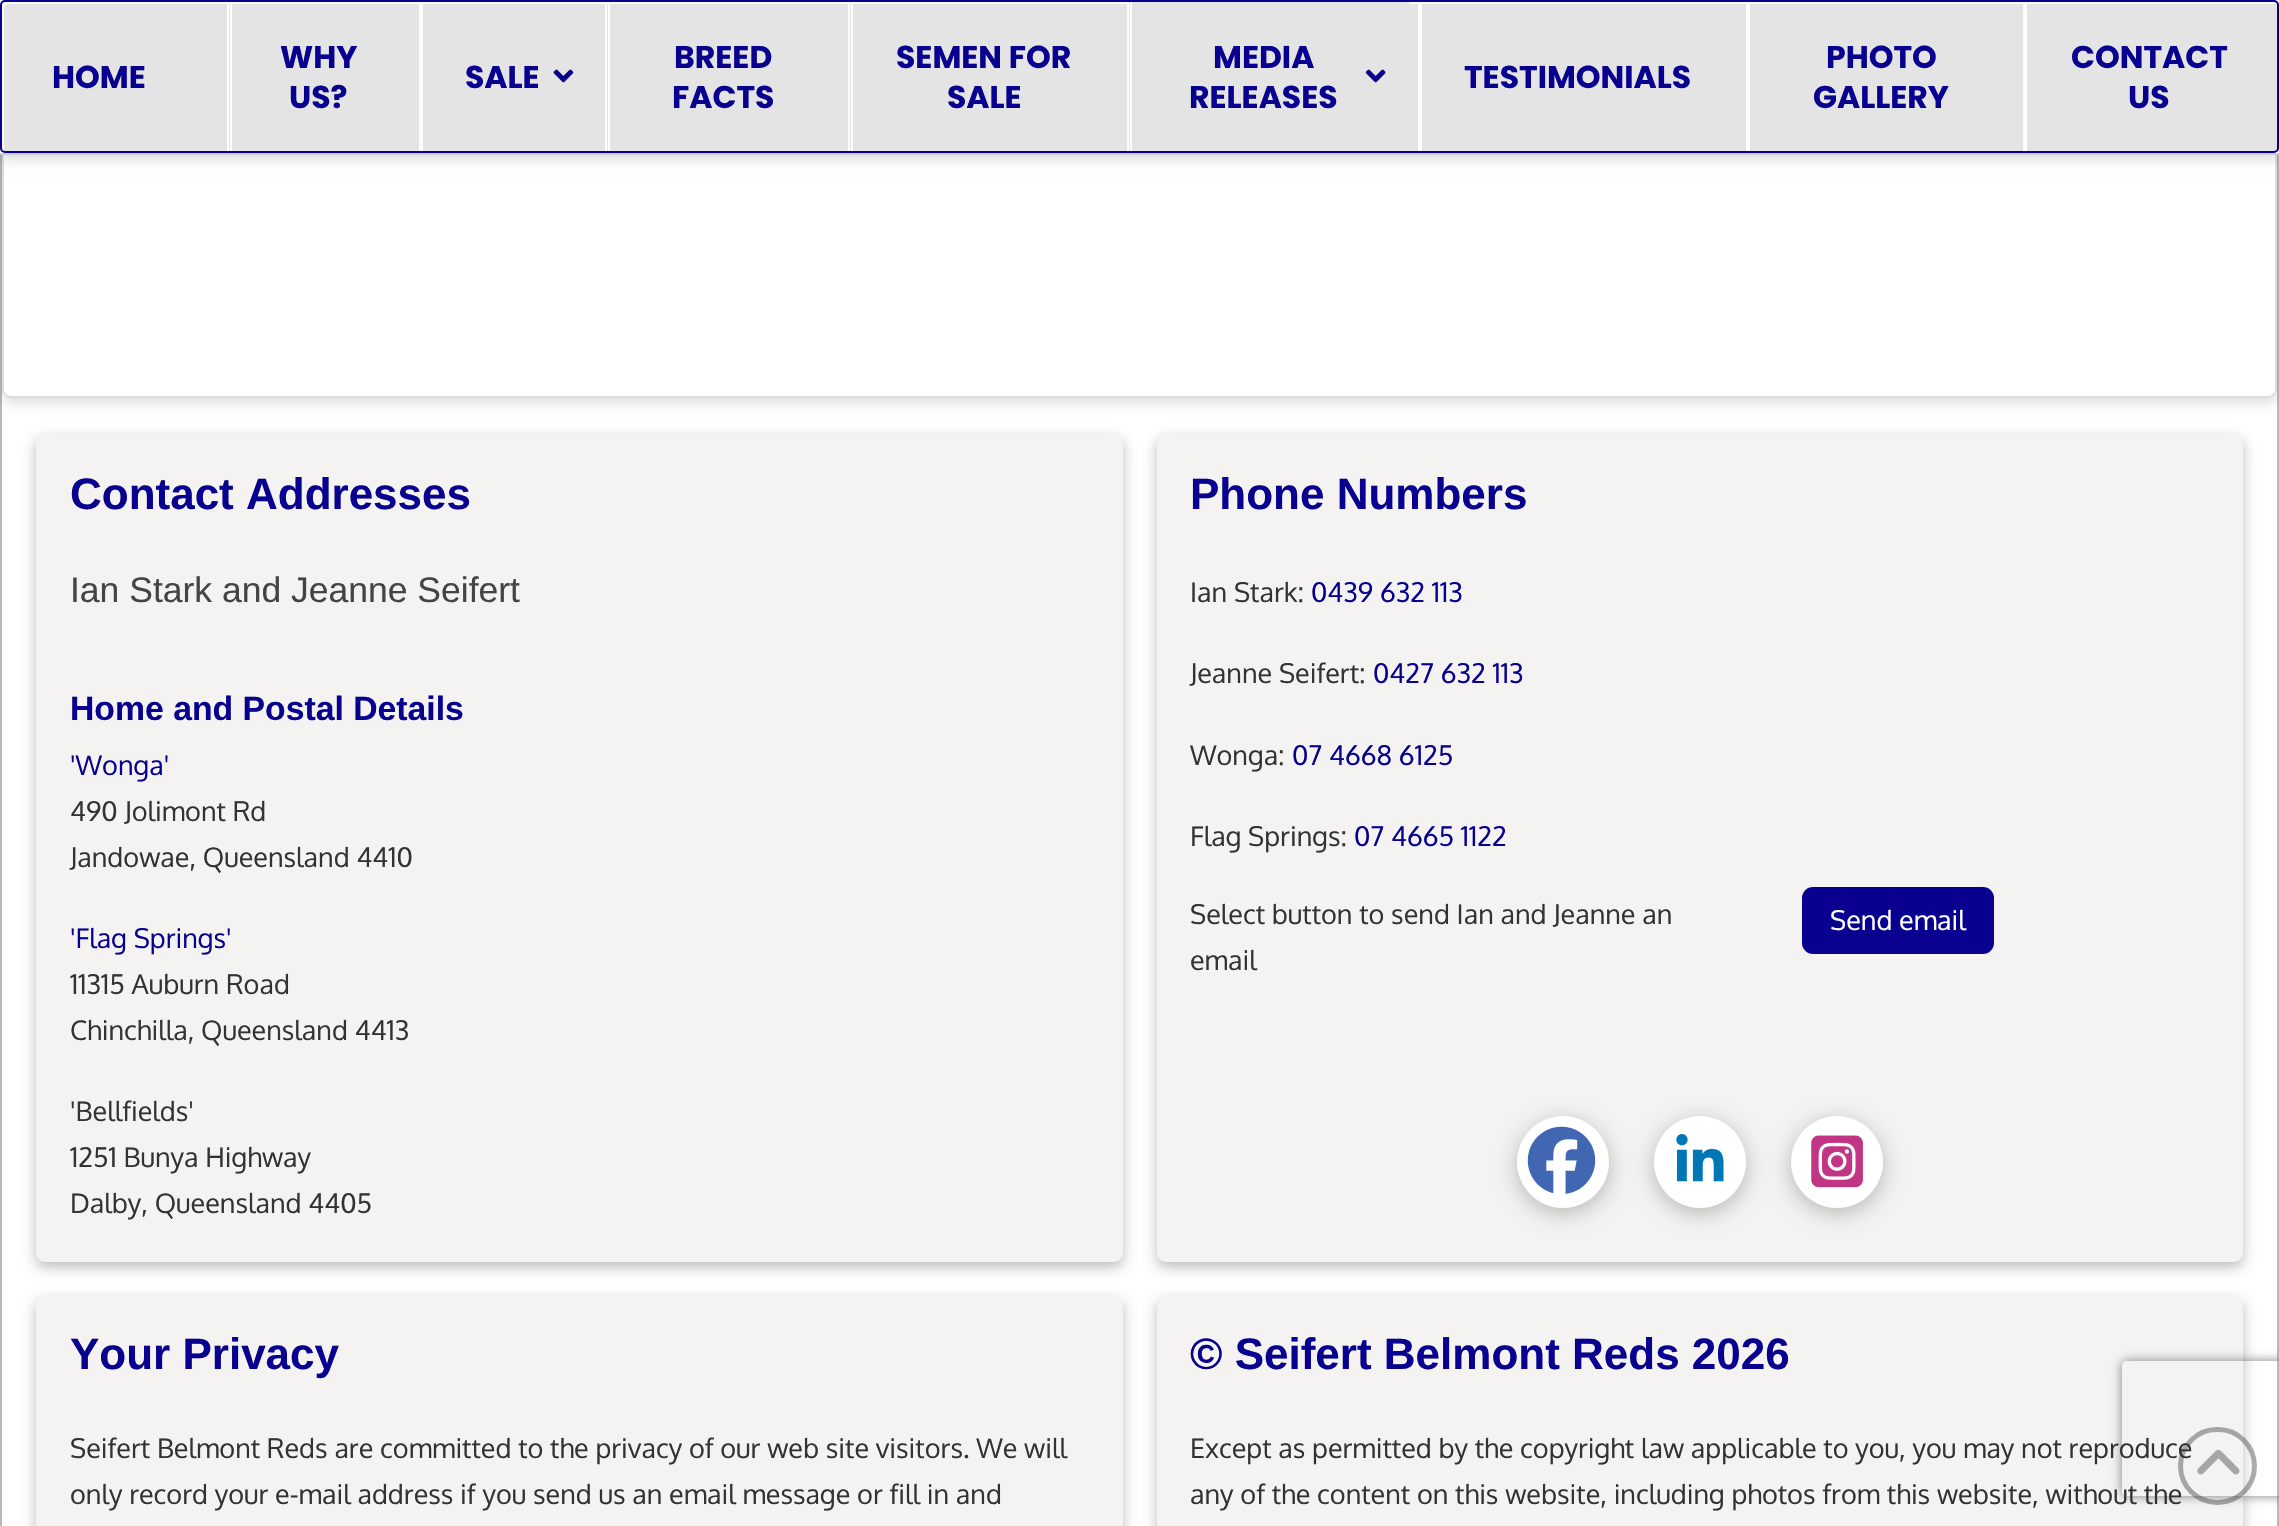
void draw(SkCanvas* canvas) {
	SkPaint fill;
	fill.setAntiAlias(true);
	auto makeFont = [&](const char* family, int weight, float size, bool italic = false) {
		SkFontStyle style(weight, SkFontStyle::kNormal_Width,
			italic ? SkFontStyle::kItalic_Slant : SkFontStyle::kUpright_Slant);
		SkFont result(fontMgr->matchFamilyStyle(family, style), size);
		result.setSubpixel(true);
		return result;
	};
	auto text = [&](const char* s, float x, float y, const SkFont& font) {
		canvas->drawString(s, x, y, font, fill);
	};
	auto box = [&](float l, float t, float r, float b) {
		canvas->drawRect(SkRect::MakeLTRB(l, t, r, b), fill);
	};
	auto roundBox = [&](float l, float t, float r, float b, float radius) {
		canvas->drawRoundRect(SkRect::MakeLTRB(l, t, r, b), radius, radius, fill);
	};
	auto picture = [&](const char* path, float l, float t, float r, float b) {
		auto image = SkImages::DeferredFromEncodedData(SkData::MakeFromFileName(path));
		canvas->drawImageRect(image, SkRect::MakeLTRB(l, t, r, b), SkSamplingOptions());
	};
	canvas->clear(0xFFFFFFFF);
	fill.setColor(0xFFB9B9B9);
	box(2277, 155, 2279, 1526);
	box(0, 155, 2, 1526);
	fill.setColor(0x21000000);
	fill.setMaskFilter(SkMaskFilter::MakeBlur(kNormal_SkBlurStyle, 6));
	canvas->drawRoundRect(SkRect::MakeLTRB(2, -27, 2277, 403), 9, 9, fill);
	fill.setMaskFilter(nullptr);
	fill.setColor(0xFFFFFFFF);
	canvas->drawRoundRect(SkRect::MakeLTRB(3, -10, 2276, 397), 8, 8, fill);
	fill.setStyle(SkPaint::kStroke_Style);
	fill.setStrokeWidth(2);
	fill.setColor(0xFFDDDDDD);
	canvas->drawRoundRect(SkRect::MakeLTRB(3, -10, 2276, 397), 8, 8, fill);
	fill.setStyle(SkPaint::kFill_Style);
	fill.setColor(0x21000000);
	fill.setMaskFilter(SkMaskFilter::MakeBlur(kNormal_SkBlurStyle, 6));
	canvas->drawRect(SkRect::MakeLTRB(0, 5, 2279, 160), fill);
	fill.setMaskFilter(nullptr);
	fill.setColor(0xFFFFFFFF);
	box(0, 0, 2279, 153);
	fill.setColor(0xFFCCCCCC);
	box(0, 153, 2279, 155);
	fill.setColor(0xFFE4E4E4);
	roundBox(0, 0, 2279, 153, 5);
	fill.setColor(0xFFFCFCFC);
	canvas->drawPath(SkPathBuilder().moveTo(7, 4).lineTo(2277, 4).cubicTo(2277, 3, 2276, 2, 2275, 2).lineTo(4, 2).cubicTo(3, 2, 2, 3, 2, 4).lineTo(2, 149).cubicTo(2, 150, 3, 151, 4, 151).lineTo(4, 7).lineTo(6, 5).close().detach(), fill);
	fill.setStyle(SkPaint::kStroke_Style);
	fill.setColor(0xFF080190);
	canvas->drawRoundRect(SkRect::MakeLTRB(1, 1, 2278, 152), 4, 4, fill);
	fill.setStyle(SkPaint::kFill_Style);
	fill.setColor(0xE6FFFFFF);
	box(230, 2, 232, 151);
	fill.setColor(0xFFFCFCFC);
	box(227, 2, 229, 151);
	fill.setColor(0xE6FFFFFF);
	box(421, 2, 423, 151);
	fill.setColor(0xFFFCFCFC);
	box(419, 2, 421, 151);
	picture("image0.png", 553, 69, 574, 83);
	fill.setColor(0xE6FFFFFF);
	box(608, 2, 610, 151);
	fill.setColor(0xFFFCFCFC);
	box(605, 2, 607, 151);
	fill.setColor(0xE6FFFFFF);
	box(851, 2, 853, 151);
	fill.setColor(0xFFFCFCFC);
	box(848, 2, 850, 151);
	fill.setColor(0xFFE4E4E4);
	box(1129, 2, 1409, 4);
	fill.setColor(0xFFFCFCFC);
	box(1130, 2, 1132, 151);
	box(1127, 2, 1129, 151);
	picture("image1.png", 1365, 69, 1386, 83);
	fill.setColor(0xE6FFFFFF);
	box(1420, 2, 1422, 151);
	fill.setColor(0xFFFCFCFC);
	box(1418, 2, 1420, 151);
	fill.setColor(0xE6FFFFFF);
	box(1748, 2, 1750, 151);
	fill.setColor(0xFFFCFCFC);
	box(1746, 2, 1748, 151);
	fill.setColor(0xE6FFFFFF);
	box(2025, 2, 2027, 151);
	fill.setColor(0xFFFCFCFC);
	box(2023, 2, 2025, 151);
	fill.setColor(0xFFBBBBBA);
	fill.setMaskFilter(SkMaskFilter::MakeBlur(kNormal_SkBlurStyle, 7));
	canvas->drawRoundRect(SkRect::MakeLTRB(36, 439, 1123, 1267), 9, 9, fill);
	fill.setMaskFilter(nullptr);
	fill.setColor(0xFFF4F3F1);
	roundBox(36, 434, 1123, 1262, 9);
	fill.setColor(0xFFBBBBBA);
	fill.setMaskFilter(SkMaskFilter::MakeBlur(kNormal_SkBlurStyle, 7));
	canvas->drawRoundRect(SkRect::MakeLTRB(1157, 439, 2243, 1267), 9, 9, fill);
	fill.setMaskFilter(nullptr);
	fill.setColor(0xFFF4F3F1);
	roundBox(1157, 434, 2243, 1262, 9);
	fill.setColor(0xFF080190);
	roundBox(1802, 887, 1994, 954, 11);
	fill.setColor(0x40000000);
	fill.setMaskFilter(SkMaskFilter::MakeBlur(kNormal_SkBlurStyle, 11));
	canvas->drawRoundRect(SkRect::MakeLTRB(1517, 1121, 1609, 1213), 46, 46, fill);
	fill.setMaskFilter(nullptr);
	fill.setColor(0xFFFFFFFF);
	canvas->drawCircle(1563, 1162, 46, fill);
	picture("image2.png", 1527, 1126, 1596, 1194);
	fill.setColor(0x40000000);
	fill.setMaskFilter(SkMaskFilter::MakeBlur(kNormal_SkBlurStyle, 11));
	canvas->drawRoundRect(SkRect::MakeLTRB(1654, 1121, 1746, 1213), 46, 46, fill);
	fill.setMaskFilter(nullptr);
	fill.setColor(0xFFFFFFFF);
	canvas->drawCircle(1700, 1162, 46, fill);
	picture("image3.png", 1676, 1134, 1724, 1182);
	fill.setColor(0x40000000);
	fill.setMaskFilter(SkMaskFilter::MakeBlur(kNormal_SkBlurStyle, 11));
	canvas->drawRoundRect(SkRect::MakeLTRB(1791, 1121, 1883, 1213), 46, 46, fill);
	fill.setMaskFilter(nullptr);
	fill.setColor(0xFFFFFFFF);
	canvas->drawCircle(1837, 1162, 46, fill);
	picture("image4.png", 1811, 1135, 1863, 1188);
	fill.setColor(0xFFBBBBBA);
	fill.setMaskFilter(SkMaskFilter::MakeBlur(kNormal_SkBlurStyle, 7));
	canvas->drawRoundRect(SkRect::MakeLTRB(36, 1301, 1123, 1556), 9, 9, fill);
	fill.setMaskFilter(nullptr);
	fill.setColor(0xFFF4F3F1);
	roundBox(36, 1296, 1123, 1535, 9);
	fill.setColor(0xFFBBBBBA);
	fill.setMaskFilter(SkMaskFilter::MakeBlur(kNormal_SkBlurStyle, 7));
	canvas->drawRoundRect(SkRect::MakeLTRB(1157, 1301, 2243, 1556), 9, 9, fill);
	fill.setMaskFilter(nullptr);
	fill.setColor(0xFFF4F3F1);
	roundBox(1157, 1296, 2243, 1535, 9);
	canvas->save();
	canvas->clipPath(SkPathBuilder(SkPathFillType::kEvenOdd).moveTo(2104, 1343).lineTo(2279, 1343).lineTo(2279, 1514).lineTo(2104, 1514).close().moveTo(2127, 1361).lineTo(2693, 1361).cubicTo(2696, 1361, 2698, 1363, 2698, 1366).lineTo(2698, 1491).cubicTo(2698, 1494, 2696, 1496, 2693, 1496).lineTo(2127, 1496).cubicTo(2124, 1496, 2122, 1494, 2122, 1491).lineTo(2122, 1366).cubicTo(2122, 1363, 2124, 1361, 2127, 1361).close().detach(), true);
	fill.setColor(0xFF808080);
	fill.setMaskFilter(SkMaskFilter::MakeBlur(kNormal_SkBlurStyle, 5.5f));
	canvas->drawRoundRect(SkRect::MakeLTRB(2122, 1361, 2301, 1496), 5, 5, fill);
	fill.setMaskFilter(nullptr);
	canvas->restore();
	auto font1 = makeFont("Poppins", 700, 31.5f);
	fill.setColor(0xFF080190);
	text("HOME", 52, 88, font1);
	text("WHY", 280, 68, font1);
	text("US?", 289, 108, font1);
	text("SALE", 465, 88, font1);
	text("BREED", 674, 68, font1);
	text("FACTS", 672, 108, font1);
	text("SEMEN FOR", 896, 68, font1);
	text("SALE", 947, 108, font1);
	text("MEDIA", 1213, 68, font1);
	text("RELEASES", 1189, 108, font1);
	text("TESTIMONIALS", 1464, 88, font1);
	text("PHOTO", 1826, 68, font1);
	text("GALLERY", 1813, 108, font1);
	text("CONTACT", 2071, 68, font1);
	text("US", 2128, 108, font1);
	auto font2 = makeFont("Liberation Sans", 700, 44);
	text("Contact Addresses", 70, 509, font2);
	auto font3 = makeFont("Liberation Sans", 400, 35.5f);
	fill.setColor(0xFF444444);
	text("Ian Stark and Jeanne Seifert", 70, 602, font3);
	auto font4 = makeFont("Liberation Sans", 700, 33.75f);
	fill.setColor(0xFF080190);
	text("Home and Postal Details", 70, 720, font4);
	auto font5 = makeFont("Oxygen", 400, 27);
	text("'Wonga'", 70, 775, font5);
	fill.setColor(0xFF333333);
	text("490 Jolimont Rd", 70, 821, font5);
	text("Jandowae, Queensland 4410", 70, 867, font5);
	fill.setColor(0xFF080190);
	text("'Flag Springs'", 70, 948, font5);
	fill.setColor(0xFF333333);
	text("11315 Auburn Road", 70, 994, font5);
	text("Chinchilla, Queensland 4413", 70, 1040, font5);
	text("'Bellfields'", 70, 1121, font5);
	text("1251 Bunya Highway", 70, 1167, font5);
	text("Dalby, Queensland 4405", 70, 1213, font5);
	fill.setColor(0xFF080190);
	text("Phone Numbers", 1190, 509, font2);
	fill.setColor(0xFF333333);
	text("Ian Stark:", 1190, 602, font5);
	fill.setColor(0xFF080190);
	text("0439 632 113", 1311, 602, font5);
	fill.setColor(0xFF333333);
	text("Jeanne Seifert:", 1190, 683, font5);
	fill.setColor(0xFF080190);
	text("0427 632 113", 1373, 683, font5);
	fill.setColor(0xFF333333);
	text("Wonga:", 1190, 765, font5);
	fill.setColor(0xFF080190);
	text("07 4668 6125", 1292, 765, font5);
	fill.setColor(0xFF333333);
	text("Flag Springs:", 1190, 846, font5);
	fill.setColor(0xFF080190);
	text("07 4665 1122", 1354, 846, font5);
	fill.setColor(0xFF333333);
	text("Select button to send Ian and Jeanne an", 1190, 924, font5);
	text("email", 1190, 970, font5);
	fill.setColor(0xFFFFFFFF);
	text("Send email", 1830, 930, font5);
	fill.setColor(0xFF080190);
	text("Your Privacy", 70, 1369, font2);
	fill.setColor(0xFF333333);
	text("Seifert Belmont Reds are committed to the privacy of our web site visitors. We will", 70, 1458, font5);
	text("only record your e-mail address if you send us an email message or fill in and", 70, 1504, font5);
	fill.setColor(0xFF080190);
	text("© Seifert Belmont Reds 2026", 1190, 1369, font2);
	fill.setColor(0xFF333333);
	text("Except as permitted by the copyright law applicable to you, you may not reproduce", 1190, 1458, font5);
	text("any of the content on this website, including photos from this website, without the", 1190, 1504, font5);
	fill.setStyle(SkPaint::kStroke_Style);
	fill.setStrokeWidth(5);
	fill.setColor(0x61272727);
	canvas->drawRoundRect(SkRect::MakeLTRB(2180.5f, 1429.5f, 2254.5f, 1502.5f), 36.5f, 36.5f, fill);
	picture("image5.png", 2197, 1449, 2240, 1475);
}
